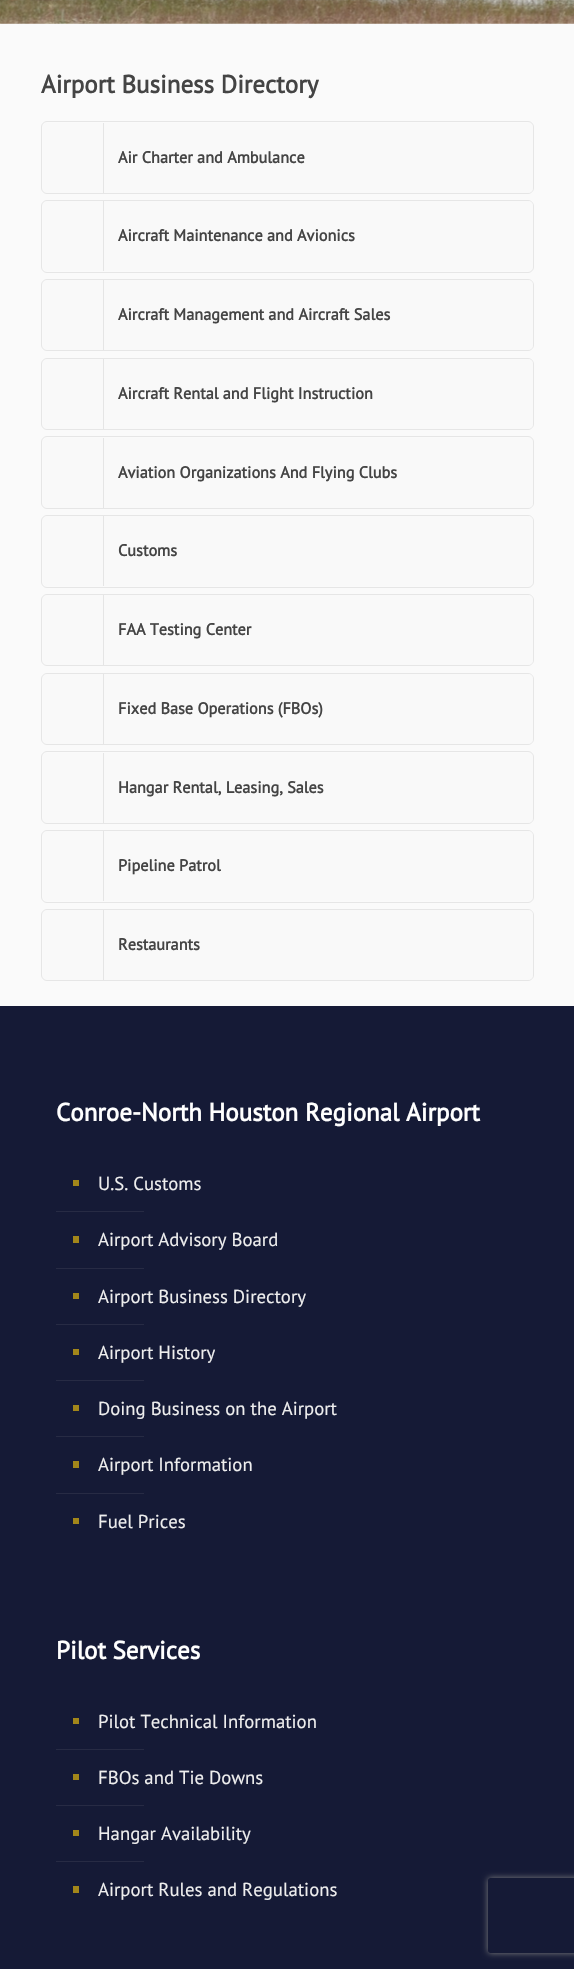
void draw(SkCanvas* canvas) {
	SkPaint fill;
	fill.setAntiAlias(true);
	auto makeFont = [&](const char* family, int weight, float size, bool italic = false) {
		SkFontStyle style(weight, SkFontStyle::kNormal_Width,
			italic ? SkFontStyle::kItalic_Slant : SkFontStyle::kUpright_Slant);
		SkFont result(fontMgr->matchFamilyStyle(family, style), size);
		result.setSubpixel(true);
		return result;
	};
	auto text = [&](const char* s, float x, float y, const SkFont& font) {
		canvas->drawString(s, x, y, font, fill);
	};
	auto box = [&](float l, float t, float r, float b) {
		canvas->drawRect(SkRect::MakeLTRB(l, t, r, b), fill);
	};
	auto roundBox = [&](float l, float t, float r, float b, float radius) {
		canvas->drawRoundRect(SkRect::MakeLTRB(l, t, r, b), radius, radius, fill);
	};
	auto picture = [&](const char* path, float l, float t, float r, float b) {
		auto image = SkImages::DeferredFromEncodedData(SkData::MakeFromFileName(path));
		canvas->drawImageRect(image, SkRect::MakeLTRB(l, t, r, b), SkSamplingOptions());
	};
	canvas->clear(0xFFFAFAFA);
	picture("image0.png", 0, 0, 574, 24);
	fill.setStyle(SkPaint::kStroke_Style);
	fill.setStrokeWidth(1);
	fill.setColor(0xFFE6E6E6);
	canvas->drawRoundRect(SkRect::MakeLTRB(41.5f, 121.5f, 533.5f, 193.5f), 5.5f, 5.5f, fill);
	fill.setStyle(SkPaint::kFill_Style);
	fill.setColor(0xFFF9F9F9);
	roundBox(43, 123, 533, 193, 5);
	fill.setColor(0xFFE5E5E5);
	box(103, 123, 104, 193);
	fill.setStyle(SkPaint::kStroke_Style);
	fill.setColor(0xFFE6E6E6);
	canvas->drawRoundRect(SkRect::MakeLTRB(41.5f, 200.5f, 533.5f, 272.5f), 5.5f, 5.5f, fill);
	fill.setStyle(SkPaint::kFill_Style);
	fill.setColor(0xFFF9F9F9);
	roundBox(43, 201, 533, 271, 5);
	fill.setColor(0xFFE5E5E5);
	box(103, 201, 104, 271);
	fill.setStyle(SkPaint::kStroke_Style);
	fill.setColor(0xFFE6E6E6);
	canvas->drawRoundRect(SkRect::MakeLTRB(41.5f, 279.5f, 533.5f, 350.5f), 5.5f, 5.5f, fill);
	fill.setStyle(SkPaint::kFill_Style);
	fill.setColor(0xFFF9F9F9);
	roundBox(43, 280, 533, 350, 5);
	fill.setColor(0xFFE5E5E5);
	box(103, 280, 104, 350);
	fill.setStyle(SkPaint::kStroke_Style);
	fill.setColor(0xFFE6E6E6);
	canvas->drawRoundRect(SkRect::MakeLTRB(41.5f, 358.5f, 533.5f, 429.5f), 5.5f, 5.5f, fill);
	fill.setStyle(SkPaint::kFill_Style);
	fill.setColor(0xFFF9F9F9);
	roundBox(43, 359, 533, 429, 5);
	fill.setColor(0xFFE5E5E5);
	box(103, 359, 104, 429);
	fill.setStyle(SkPaint::kStroke_Style);
	fill.setColor(0xFFE6E6E6);
	canvas->drawRoundRect(SkRect::MakeLTRB(41.5f, 436.5f, 533.5f, 508.5f), 5.5f, 5.5f, fill);
	fill.setStyle(SkPaint::kFill_Style);
	fill.setColor(0xFFF9F9F9);
	roundBox(43, 438, 533, 508, 5);
	fill.setColor(0xFFE5E5E5);
	box(103, 438, 104, 508);
	fill.setStyle(SkPaint::kStroke_Style);
	fill.setColor(0xFFE6E6E6);
	canvas->drawRoundRect(SkRect::MakeLTRB(41.5f, 515.5f, 533.5f, 587.5f), 5.5f, 5.5f, fill);
	fill.setStyle(SkPaint::kFill_Style);
	fill.setColor(0xFFF9F9F9);
	roundBox(43, 516, 533, 586, 5);
	fill.setColor(0xFFE5E5E5);
	box(103, 516, 104, 586);
	fill.setStyle(SkPaint::kStroke_Style);
	fill.setColor(0xFFE6E6E6);
	canvas->drawRoundRect(SkRect::MakeLTRB(41.5f, 594.5f, 533.5f, 665.5f), 5.5f, 5.5f, fill);
	fill.setStyle(SkPaint::kFill_Style);
	fill.setColor(0xFFF9F9F9);
	roundBox(43, 595, 533, 665, 5);
	fill.setColor(0xFFE5E5E5);
	box(103, 595, 104, 665);
	fill.setStyle(SkPaint::kStroke_Style);
	fill.setColor(0xFFE6E6E6);
	canvas->drawRoundRect(SkRect::MakeLTRB(41.5f, 673.5f, 533.5f, 744.5f), 5.5f, 5.5f, fill);
	fill.setStyle(SkPaint::kFill_Style);
	fill.setColor(0xFFF9F9F9);
	roundBox(43, 674, 533, 744, 5);
	fill.setColor(0xFFE5E5E5);
	box(103, 674, 104, 744);
	fill.setStyle(SkPaint::kStroke_Style);
	fill.setColor(0xFFE6E6E6);
	canvas->drawRoundRect(SkRect::MakeLTRB(41.5f, 751.5f, 533.5f, 823.5f), 5.5f, 5.5f, fill);
	fill.setStyle(SkPaint::kFill_Style);
	fill.setColor(0xFFF9F9F9);
	roundBox(43, 753, 533, 823, 5);
	fill.setColor(0xFFE5E5E5);
	box(103, 753, 104, 823);
	fill.setStyle(SkPaint::kStroke_Style);
	fill.setColor(0xFFE6E6E6);
	canvas->drawRoundRect(SkRect::MakeLTRB(41.5f, 830.5f, 533.5f, 902.5f), 5.5f, 5.5f, fill);
	fill.setStyle(SkPaint::kFill_Style);
	fill.setColor(0xFFF9F9F9);
	roundBox(43, 831, 533, 901, 5);
	fill.setColor(0xFFE5E5E5);
	box(103, 831, 104, 901);
	fill.setStyle(SkPaint::kStroke_Style);
	fill.setColor(0xFFE6E6E6);
	canvas->drawRoundRect(SkRect::MakeLTRB(41.5f, 909.5f, 533.5f, 980.5f), 5.5f, 5.5f, fill);
	fill.setStyle(SkPaint::kFill_Style);
	fill.setColor(0xFFF9F9F9);
	roundBox(43, 910, 533, 980, 5);
	fill.setColor(0xFFE5E5E5);
	box(103, 910, 104, 980);
	fill.setColor(0xFF151A36);
	box(0, 1006, 574, 1969);
	fill.setColor(0xFFA2861A);
	box(73, 1180, 79, 1186);
	fill.setColor(0xFF272B44);
	box(56, 1211, 144, 1212);
	fill.setColor(0xFFA2861A);
	box(73, 1236, 79, 1243);
	fill.setColor(0xFF272B44);
	box(56, 1268, 144, 1269);
	fill.setColor(0xFFA2861A);
	box(73, 1293, 79, 1299);
	fill.setColor(0xFF272B44);
	box(56, 1324, 144, 1325);
	fill.setColor(0xFFA2861A);
	box(73, 1349, 79, 1355);
	fill.setColor(0xFF272B44);
	box(56, 1380, 144, 1381);
	fill.setColor(0xFFA2861A);
	box(73, 1405, 79, 1411);
	fill.setColor(0xFF272B44);
	box(56, 1436, 144, 1437);
	fill.setColor(0xFFA2861A);
	box(73, 1461, 79, 1468);
	fill.setColor(0xFF272B44);
	box(56, 1493, 144, 1494);
	fill.setColor(0xFFA2861A);
	box(73, 1518, 79, 1524);
	box(73, 1718, 79, 1724);
	fill.setColor(0xFF272B44);
	box(56, 1749, 144, 1750);
	fill.setColor(0xFFA2861A);
	box(73, 1774, 79, 1780);
	fill.setColor(0xFF272B44);
	box(56, 1805, 144, 1806);
	fill.setColor(0xFFA2861A);
	box(73, 1830, 79, 1836);
	fill.setColor(0xFF272B44);
	box(56, 1861, 144, 1862);
	fill.setColor(0xFFA2861A);
	box(73, 1886, 79, 1893);
	canvas->save();
	canvas->clipPath(SkPathBuilder(SkPathFillType::kEvenOdd).moveTo(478, 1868).lineTo(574, 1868).lineTo(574, 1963).lineTo(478, 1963).close().moveTo(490.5f, 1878).lineTo(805.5f, 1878).cubicTo(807, 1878, 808, 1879, 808, 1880.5f).lineTo(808, 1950.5f).cubicTo(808, 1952, 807, 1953, 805.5f, 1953).lineTo(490.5f, 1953).cubicTo(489, 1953, 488, 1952, 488, 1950.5f).lineTo(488, 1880.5f).cubicTo(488, 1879, 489, 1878, 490.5f, 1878).close().detach(), true);
	fill.setColor(0xFF808080);
	fill.setMaskFilter(SkMaskFilter::MakeBlur(kNormal_SkBlurStyle, 3));
	canvas->drawRoundRect(SkRect::MakeLTRB(488, 1878, 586, 1953), 2.5f, 2.5f, fill);
	fill.setMaskFilter(nullptr);
	canvas->restore();
	auto font1 = makeFont("PT Sans", 700, 25);
	fill.setColor(0xFF444444);
	text("Airport Business Directory", 41, 93, font1);
	auto font2 = makeFont("PT Sans", 700, 16.25f);
	text("Air Charter and Ambulance", 118, 163, font2);
	text("Aircraft Maintenance and Avionics", 118, 241, font2);
	text("Aircraft Management and Aircraft Sales", 118, 320, font2);
	text("Aircraft Rental and Flight Instruction", 118, 399, font2);
	text("Aviation Organizations And Flying Clubs", 118, 478, font2);
	text("Customs", 118, 556, font2);
	text("FAA Testing Center", 118, 635, font2);
	text("Fixed Base Operations (FBOs)", 118, 714, font2);
	text("Hangar Rental, Leasing, Sales", 118, 793, font2);
	text("Pipeline Patrol", 118, 871, font2);
	text("Restaurants", 118, 950, font2);
	fill.setColor(0xFFFFFFFF);
	text("Conroe-North Houston Regional Airport", 56, 1121, font1);
	auto font3 = makeFont("PT Sans", 400, 18.75f);
	fill.setColor(0xFFEEEEEE);
	text("U.S. Customs", 98, 1190, font3);
	text("Airport Advisory Board", 98, 1246, font3);
	text("Airport Business Directory", 98, 1303, font3);
	text("Airport History", 98, 1359, font3);
	text("Doing Business on the Airport", 98, 1415, font3);
	text("Airport Information", 98, 1471, font3);
	text("Fuel Prices", 98, 1528, font3);
	fill.setColor(0xFFFFFFFF);
	text("Pilot Services", 56, 1659, font1);
	fill.setColor(0xFFEEEEEE);
	text("Pilot Technical Information", 98, 1728, font3);
	text("FBOs and Tie Downs", 98, 1784, font3);
	text("Hangar Availability", 98, 1840, font3);
	text("Airport Rules and Regulations", 98, 1896, font3);
}
